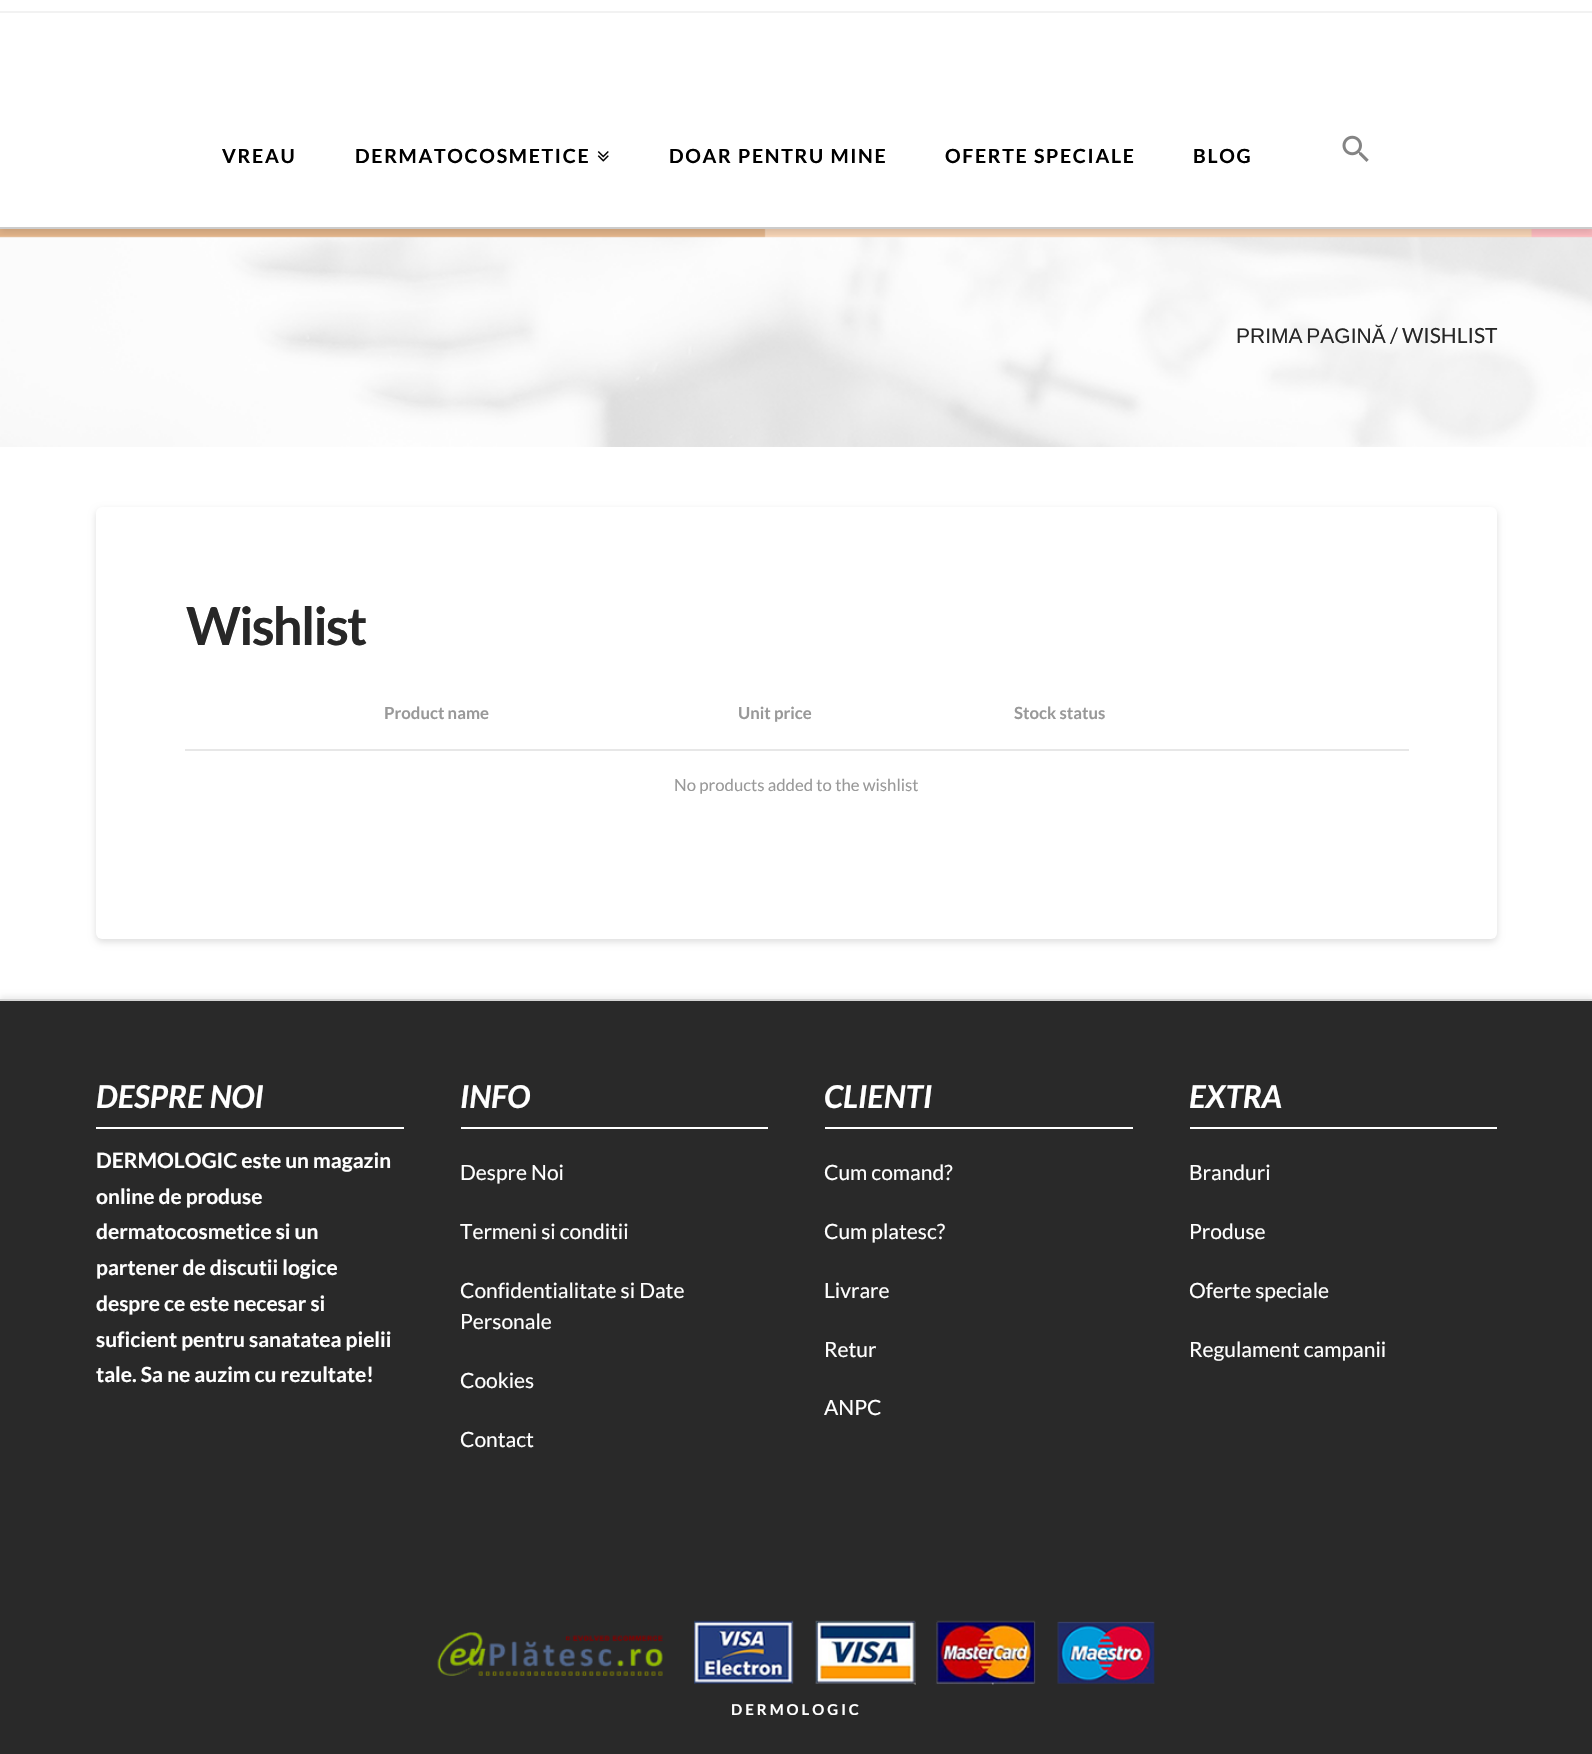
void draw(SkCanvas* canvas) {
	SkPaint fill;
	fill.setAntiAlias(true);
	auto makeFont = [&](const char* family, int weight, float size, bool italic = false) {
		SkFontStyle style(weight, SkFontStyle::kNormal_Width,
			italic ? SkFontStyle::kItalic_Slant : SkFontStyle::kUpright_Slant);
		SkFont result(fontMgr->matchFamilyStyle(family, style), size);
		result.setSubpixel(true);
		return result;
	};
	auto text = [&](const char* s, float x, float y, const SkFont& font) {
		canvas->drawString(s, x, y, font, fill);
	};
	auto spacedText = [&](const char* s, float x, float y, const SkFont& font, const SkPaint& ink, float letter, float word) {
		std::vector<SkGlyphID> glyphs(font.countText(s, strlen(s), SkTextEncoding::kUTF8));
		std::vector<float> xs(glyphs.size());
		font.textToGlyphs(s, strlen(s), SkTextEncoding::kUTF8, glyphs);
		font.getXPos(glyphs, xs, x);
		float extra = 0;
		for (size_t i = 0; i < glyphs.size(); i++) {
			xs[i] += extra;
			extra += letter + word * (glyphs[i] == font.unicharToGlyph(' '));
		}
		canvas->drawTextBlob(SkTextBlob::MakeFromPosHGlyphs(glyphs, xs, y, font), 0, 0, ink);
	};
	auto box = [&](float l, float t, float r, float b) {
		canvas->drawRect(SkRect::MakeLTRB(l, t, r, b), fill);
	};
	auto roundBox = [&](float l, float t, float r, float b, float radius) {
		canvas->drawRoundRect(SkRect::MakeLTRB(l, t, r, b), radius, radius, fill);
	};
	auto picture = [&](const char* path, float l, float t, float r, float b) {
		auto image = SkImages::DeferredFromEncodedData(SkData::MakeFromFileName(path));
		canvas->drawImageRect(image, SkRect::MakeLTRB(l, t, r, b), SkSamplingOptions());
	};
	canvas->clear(0xFFFFFFFF);
	fill.setColor(0xFFF2F2F2);
	box(0, 11, 1592, 13);
	picture("image2.png", 0, 229, 1592, 447);
	canvas->save();
	canvas->clipRect(SkRect::MakeLTRB(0, 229, 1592, 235));
	fill.setColor(0x21000000);
	fill.setMaskFilter(SkMaskFilter::MakeBlur(kNormal_SkBlurStyle, 3.5f));
	canvas->drawRect(SkRect::MakeLTRB(0, 44, 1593, 231), fill);
	fill.setMaskFilter(nullptr);
	canvas->restore();
	fill.setColor(0xFFCCCCCC);
	box(0, 227, 1592, 229);
	picture("image0.png", 597, 151, 609, 162);
	picture("image1.png", 1342, 135, 1369, 162);
	fill.setColor(0x21000000);
	fill.setMaskFilter(SkMaskFilter::MakeBlur(kNormal_SkBlurStyle, 3.5f));
	canvas->drawRoundRect(SkRect::MakeLTRB(96, 510, 1497, 942), 6, 6, fill);
	fill.setMaskFilter(nullptr);
	fill.setColor(0xFFFFFFFF);
	roundBox(96, 507, 1497, 939, 6);
	fill.setColor(0xFFE7E7E7);
	box(185, 749, 1409, 751);
	fill.setColor(0x12000000);
	fill.setMaskFilter(SkMaskFilter::MakeBlur(kNormal_SkBlurStyle, 2.5f));
	canvas->drawRect(SkRect::MakeLTRB(0, 996, 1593, 1547), fill);
	fill.setMaskFilter(nullptr);
	fill.setColor(0xFF292929);
	box(0, 1001, 1592, 1754);
	fill.setColor(0xFFD4D4D4);
	box(0, 999, 1592, 1001);
	fill.setColor(0xFFFFFFFF);
	box(96, 1127, 404, 1129);
	box(461, 1127, 768, 1129);
	box(825, 1127, 1133, 1129);
	box(1190, 1127, 1497, 1129);
	picture("image3.png", 437, 1620, 1155, 1685);
	auto font1 = makeFont("Lato", 700, 19.5f);
	fill.setColor(0xFF000000);
	spacedText("VREAU", 222, 163, font1, fill, 1.7f, 0);
	spacedText("DERMATOCOSMETICE", 355, 163, font1, fill, 1.7f, 0);
	spacedText("DOAR PENTRU MINE", 669, 163, font1, fill, 1.7f, 0);
	spacedText("OFERTE SPECIALE", 945, 163, font1, fill, 1.7f, 0);
	spacedText("BLOG", 1193, 163, font1, fill, 1.7f, 0);
	auto font2 = makeFont("Liberation Sans", 400, 21);
	fill.setColor(0xFF272727);
	spacedText("PRIMA PAGINĂ", 1236, 343, font2, fill, 0, -2);
	auto font3 = makeFont("Lato", 400, 21);
	text("/ WISHLIST", 1390, 343, font3);
	auto font4 = makeFont("Lato", 700, 52.5f);
	spacedText("Wishlist", 186, 645, font4, fill, -1.75f, 0);
	auto font5 = makeFont("Lato", 700, 16.75f);
	fill.setColor(0xFF999999);
	text("Product name", 384, 719, font5);
	text("Unit price", 738, 719, font5);
	text("Stock status", 1014, 719, font5);
	auto font6 = makeFont("Lato", 400, 16.75f);
	text("No products added to the wishlist", 674, 791, font6);
	auto font7 = makeFont("Lato", 700, 31.5f, true);
	fill.setColor(0xFFFFFFFF);
	text("DESPRE NOI", 96, 1108, font7);
	auto font8 = makeFont("Lato", 700, 21);
	text("DERMOLOGIC este un magazin", 96, 1168, font8);
	text("online de produse", 96, 1204, font8);
	text("dermatocosmetice si un", 96, 1239, font8);
	text("partener de discutii logice", 96, 1275, font8);
	text("despre ce este necesar si", 96, 1311, font8);
	text("suficient pentru sanatatea pielii", 96, 1347, font8);
	text("tale. Sa ne auzim cu rezultate!", 96, 1382, font8);
	text("INFO", 460, 1108, font7);
	text("Despre Noi", 460, 1180, font3);
	text("Termeni si conditii", 460, 1239, font3);
	text("Confidentialitate si Date", 460, 1298, font3);
	text("Personale", 460, 1329, font3);
	text("Cookies", 460, 1388, font3);
	text("Contact", 460, 1447, font3);
	text("CLIENTI", 824, 1108, font7);
	text("Cum comand?", 824, 1180, font3);
	text("Cum platesc?", 824, 1239, font3);
	text("Livrare", 824, 1298, font3);
	text("Retur", 824, 1357, font3);
	text("ANPC", 824, 1415, font3);
	text("EXTRA", 1189, 1108, font7);
	text("Branduri", 1189, 1180, font3);
	text("Produse", 1189, 1239, font3);
	text("Oferte speciale", 1189, 1298, font3);
	text("Regulament campanii", 1189, 1357, font3);
	auto font9 = makeFont("Lato", 700, 15);
	spacedText("DERMOLOGIC", 731, 1715, font9, fill, 3, 0);
}
